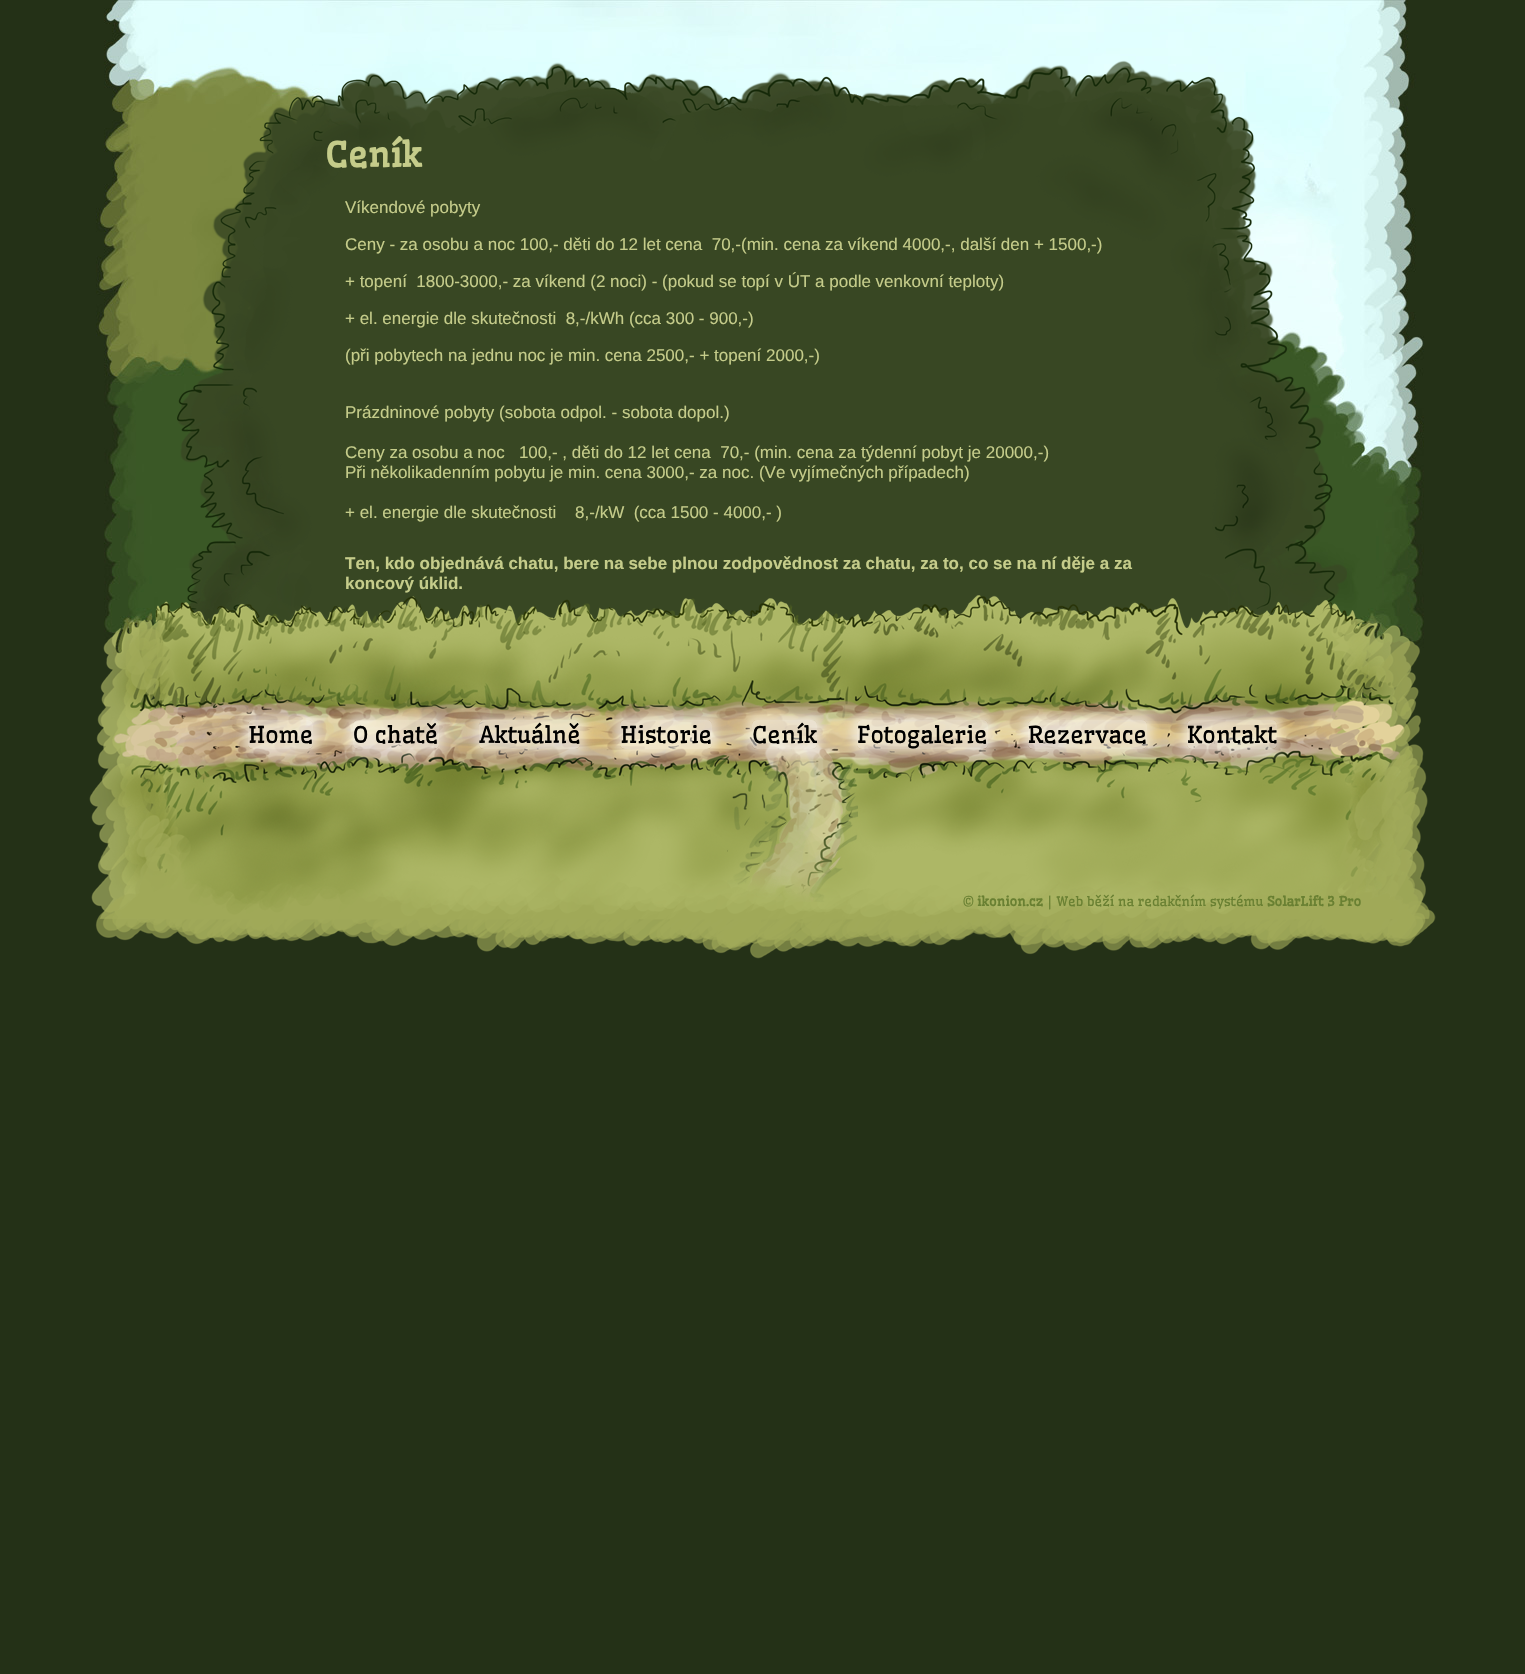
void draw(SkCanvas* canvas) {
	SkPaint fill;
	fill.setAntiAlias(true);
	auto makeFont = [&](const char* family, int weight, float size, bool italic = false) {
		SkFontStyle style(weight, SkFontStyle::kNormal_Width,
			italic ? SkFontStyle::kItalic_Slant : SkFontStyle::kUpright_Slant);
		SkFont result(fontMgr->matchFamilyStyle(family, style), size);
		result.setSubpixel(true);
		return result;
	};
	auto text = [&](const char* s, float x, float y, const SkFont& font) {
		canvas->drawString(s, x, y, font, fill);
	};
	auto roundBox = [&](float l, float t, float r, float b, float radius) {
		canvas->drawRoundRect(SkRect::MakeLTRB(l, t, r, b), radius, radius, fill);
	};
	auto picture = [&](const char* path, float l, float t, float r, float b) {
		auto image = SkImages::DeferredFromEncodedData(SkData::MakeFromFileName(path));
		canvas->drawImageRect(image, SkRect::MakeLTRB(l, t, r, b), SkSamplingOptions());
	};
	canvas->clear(0xFF243117);
	picture("image0.png", 96, 0, 1424, 776);
	picture("image1.png", 177, 60, 1347, 629);
	picture("image2.png", 89, 595, 1436, 959);
	canvas->save();
	canvas->clipPath(SkPathBuilder(SkPathFillType::kEvenOdd).moveTo(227, 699).lineTo(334, 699).lineTo(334, 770).lineTo(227, 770).close().moveTo(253, 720).lineTo(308, 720).cubicTo(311, 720, 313, 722, 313, 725).lineTo(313, 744).cubicTo(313, 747, 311, 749, 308, 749).lineTo(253, 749).cubicTo(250, 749, 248, 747, 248, 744).lineTo(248, 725).cubicTo(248, 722, 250, 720, 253, 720).close().detach(), true);
	fill.setColor(0x80FFFFFF);
	fill.setMaskFilter(SkMaskFilter::MakeBlur(kNormal_SkBlurStyle, 5));
	canvas->drawRoundRect(SkRect::MakeLTRB(243, 715, 318, 754), 10, 10, fill);
	fill.setMaskFilter(nullptr);
	canvas->restore();
	roundBox(248, 720, 313, 749, 5);
	canvas->save();
	canvas->clipPath(SkPathBuilder(SkPathFillType::kEvenOdd).moveTo(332, 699).lineTo(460, 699).lineTo(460, 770).lineTo(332, 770).close().moveTo(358, 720).lineTo(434, 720).cubicTo(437, 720, 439, 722, 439, 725).lineTo(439, 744).cubicTo(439, 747, 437, 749, 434, 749).lineTo(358, 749).cubicTo(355, 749, 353, 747, 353, 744).lineTo(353, 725).cubicTo(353, 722, 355, 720, 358, 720).close().detach(), true);
	fill.setMaskFilter(SkMaskFilter::MakeBlur(kNormal_SkBlurStyle, 5));
	canvas->drawRoundRect(SkRect::MakeLTRB(348, 715, 444, 754), 10, 10, fill);
	fill.setMaskFilter(nullptr);
	canvas->restore();
	roundBox(353, 720, 439, 749, 5);
	canvas->save();
	canvas->clipPath(SkPathBuilder(SkPathFillType::kEvenOdd).moveTo(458, 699).lineTo(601, 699).lineTo(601, 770).lineTo(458, 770).close().moveTo(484, 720).lineTo(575, 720).cubicTo(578, 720, 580, 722, 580, 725).lineTo(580, 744).cubicTo(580, 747, 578, 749, 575, 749).lineTo(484, 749).cubicTo(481, 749, 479, 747, 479, 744).lineTo(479, 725).cubicTo(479, 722, 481, 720, 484, 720).close().detach(), true);
	fill.setMaskFilter(SkMaskFilter::MakeBlur(kNormal_SkBlurStyle, 5));
	canvas->drawRoundRect(SkRect::MakeLTRB(474, 715, 585, 754), 10, 10, fill);
	fill.setMaskFilter(nullptr);
	canvas->restore();
	roundBox(479, 720, 580, 749, 5);
	picture("image3.png", 727, 737, 858, 902);
	canvas->save();
	canvas->clipPath(SkPathBuilder(SkPathFillType::kEvenOdd).moveTo(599, 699).lineTo(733, 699).lineTo(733, 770).lineTo(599, 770).close().moveTo(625, 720).lineTo(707, 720).cubicTo(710, 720, 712, 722, 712, 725).lineTo(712, 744).cubicTo(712, 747, 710, 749, 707, 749).lineTo(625, 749).cubicTo(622, 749, 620, 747, 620, 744).lineTo(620, 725).cubicTo(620, 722, 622, 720, 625, 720).close().detach(), true);
	fill.setMaskFilter(SkMaskFilter::MakeBlur(kNormal_SkBlurStyle, 5));
	canvas->drawRoundRect(SkRect::MakeLTRB(615, 715, 717, 754), 10, 10, fill);
	fill.setMaskFilter(nullptr);
	canvas->restore();
	roundBox(620, 720, 712, 749, 5);
	canvas->save();
	canvas->clipPath(SkPathBuilder(SkPathFillType::kEvenOdd).moveTo(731, 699).lineTo(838, 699).lineTo(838, 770).lineTo(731, 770).close().moveTo(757, 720).lineTo(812, 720).cubicTo(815, 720, 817, 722, 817, 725).lineTo(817, 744).cubicTo(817, 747, 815, 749, 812, 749).lineTo(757, 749).cubicTo(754, 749, 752, 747, 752, 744).lineTo(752, 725).cubicTo(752, 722, 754, 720, 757, 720).close().detach(), true);
	fill.setMaskFilter(SkMaskFilter::MakeBlur(kNormal_SkBlurStyle, 5));
	canvas->drawRoundRect(SkRect::MakeLTRB(747, 715, 822, 754), 10, 10, fill);
	fill.setMaskFilter(nullptr);
	canvas->restore();
	roundBox(752, 720, 817, 749, 5);
	canvas->save();
	canvas->clipPath(SkPathBuilder(SkPathFillType::kEvenOdd).moveTo(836, 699).lineTo(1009, 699).lineTo(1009, 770).lineTo(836, 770).close().moveTo(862, 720).lineTo(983, 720).cubicTo(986, 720, 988, 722, 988, 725).lineTo(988, 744).cubicTo(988, 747, 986, 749, 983, 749).lineTo(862, 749).cubicTo(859, 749, 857, 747, 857, 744).lineTo(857, 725).cubicTo(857, 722, 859, 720, 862, 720).close().detach(), true);
	fill.setMaskFilter(SkMaskFilter::MakeBlur(kNormal_SkBlurStyle, 5));
	canvas->drawRoundRect(SkRect::MakeLTRB(852, 715, 993, 754), 10, 10, fill);
	fill.setMaskFilter(nullptr);
	canvas->restore();
	roundBox(857, 720, 988, 749, 5);
	canvas->save();
	canvas->clipPath(SkPathBuilder(SkPathFillType::kEvenOdd).moveTo(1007, 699).lineTo(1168, 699).lineTo(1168, 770).lineTo(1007, 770).close().moveTo(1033, 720).lineTo(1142, 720).cubicTo(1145, 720, 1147, 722, 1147, 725).lineTo(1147, 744).cubicTo(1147, 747, 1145, 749, 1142, 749).lineTo(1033, 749).cubicTo(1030, 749, 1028, 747, 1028, 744).lineTo(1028, 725).cubicTo(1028, 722, 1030, 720, 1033, 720).close().detach(), true);
	fill.setMaskFilter(SkMaskFilter::MakeBlur(kNormal_SkBlurStyle, 5));
	canvas->drawRoundRect(SkRect::MakeLTRB(1023, 715, 1152, 754), 10, 10, fill);
	fill.setMaskFilter(nullptr);
	canvas->restore();
	roundBox(1028, 720, 1147, 749, 5);
	canvas->save();
	canvas->clipPath(SkPathBuilder(SkPathFillType::kEvenOdd).moveTo(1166, 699).lineTo(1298, 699).lineTo(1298, 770).lineTo(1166, 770).close().moveTo(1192, 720).lineTo(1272, 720).cubicTo(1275, 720, 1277, 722, 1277, 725).lineTo(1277, 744).cubicTo(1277, 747, 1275, 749, 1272, 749).lineTo(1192, 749).cubicTo(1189, 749, 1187, 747, 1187, 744).lineTo(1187, 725).cubicTo(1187, 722, 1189, 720, 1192, 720).close().detach(), true);
	fill.setMaskFilter(SkMaskFilter::MakeBlur(kNormal_SkBlurStyle, 5));
	canvas->drawRoundRect(SkRect::MakeLTRB(1182, 715, 1282, 754), 10, 10, fill);
	fill.setMaskFilter(nullptr);
	canvas->restore();
	roundBox(1187, 720, 1277, 749, 5);
	auto font1 = makeFont("Wellfleet", 700, 34);
	fill.setColor(0xFFC5CC8A);
	text("Ceník", 325, 167, font1);
	auto font2 = makeFont("Liberation Sans", 400, 17);
	text("Víkendové pobyty", 345, 213, font2);
	text("Ceny - za osobu a noc 100,- děti do 12 let cena  70,-(min. cena za víkend 4000,-, další den + 1500,-)", 345, 250, font2);
	text("+ topení  1800-3000,- za víkend (2 noci) - (pokud se topí v ÚT a podle venkovní teploty)", 345, 287, font2);
	text("+ el. energie dle skutečnosti  8,-/kWh (cca 300 - 900,-)", 345, 324, font2);
	text("(při pobytech na jednu noc je min. cena 2500,- + topení 2000,-)", 345, 361, font2);
	text("Prázdninové pobyty (sobota odpol. - sobota dopol.)", 345, 418, font2);
	text("Ceny za osobu a noc   100,- , děti do 12 let cena  70,- (min. cena za týdenní pobyt je 20000,-)", 345, 458, font2);
	text("Při několikadenním pobytu je min. cena 3000,- za noc. (Ve vyjímečných případech)", 345, 478, font2);
	text("+ el. energie dle skutečnosti    8,-/kW  (cca 1500 - 4000,- )", 345, 518, font2);
	auto font3 = makeFont("Liberation Sans", 700, 17);
	text("Ten, kdo objednává chatu, bere na sebe plnou zodpovědnost za chatu, za to, co se na ní děje a za", 345, 569, font3);
	text("koncový úklid.", 345, 589, font3);
	auto font4 = makeFont("Wellfleet", 400, 23);
	fill.setColor(0xFF000000);
	text("Home", 248, 743, font4);
	text("O chatě", 353, 743, font4);
	text("Aktuálně", 479, 743, font4);
	text("Historie", 620, 743, font4);
	text("Ceník", 752, 743, font4);
	text("Fotogalerie", 857, 743, font4);
	text("Rezervace", 1028, 743, font4);
	text("Kontakt", 1187, 743, font4);
	auto font5 = makeFont("Wellfleet", 400, 13);
	fill.setColor(0xFF698032);
	text("©", 963, 906, font5);
	auto font6 = makeFont("Wellfleet", 700, 13);
	text("ikonion.cz", 977, 906, font6);
	text("| Web běží na redakčním systému", 1047, 906, font5);
	text("SolarLift 3 Pro", 1267, 906, font6);
}
